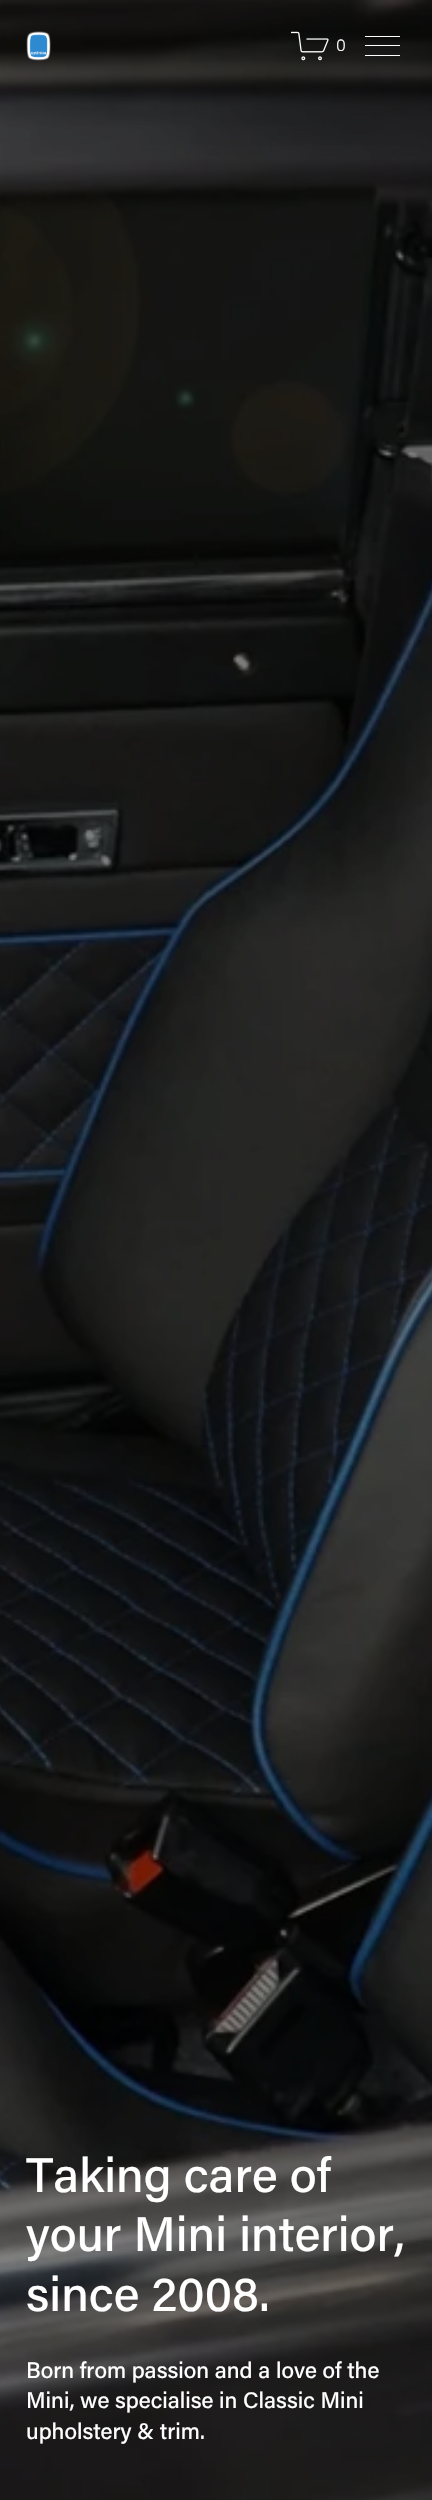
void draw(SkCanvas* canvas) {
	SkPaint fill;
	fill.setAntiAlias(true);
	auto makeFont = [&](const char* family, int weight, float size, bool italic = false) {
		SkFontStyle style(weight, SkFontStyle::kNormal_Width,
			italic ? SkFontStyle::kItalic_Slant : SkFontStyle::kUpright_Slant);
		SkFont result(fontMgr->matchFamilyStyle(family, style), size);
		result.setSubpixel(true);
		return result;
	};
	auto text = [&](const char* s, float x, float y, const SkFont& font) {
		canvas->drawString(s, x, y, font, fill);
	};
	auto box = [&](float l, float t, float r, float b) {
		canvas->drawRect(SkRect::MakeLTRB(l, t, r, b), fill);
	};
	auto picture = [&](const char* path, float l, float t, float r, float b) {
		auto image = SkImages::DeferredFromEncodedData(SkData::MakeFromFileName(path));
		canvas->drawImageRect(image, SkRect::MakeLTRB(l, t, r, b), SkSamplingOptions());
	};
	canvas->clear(0xFFFFFFFF);
	picture("image2.png", 0, 0, 432, 2500);
	picture("image0.png", 26, 31, 51, 61);
	picture("image1.png", 291, 31, 329, 61);
	fill.setColor(0xFFFFFFFF);
	box(365, 36, 400, 37);
	box(365, 45, 400, 46);
	box(365, 55, 400, 56);
	auto font1 = makeFont("Poppins", 300, 16);
	text("0", 336, 51, font1);
	auto font2 = makeFont("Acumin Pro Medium", 500, 48.5f);
	text("Taking care of", 26, 2192, font2);
	text("your Mini interior,", 26, 2251, font2);
	text("since 2008.", 26, 2311, font2);
	auto font3 = makeFont("Acumin Pro Medium", 500, 22.5f);
	text("Born from passion and a love of the", 26, 2378, font3);
	text("Mini, we specialise in Classic Mini", 26, 2408, font3);
	text("upholstery & trim.", 26, 2439, font3);
}
